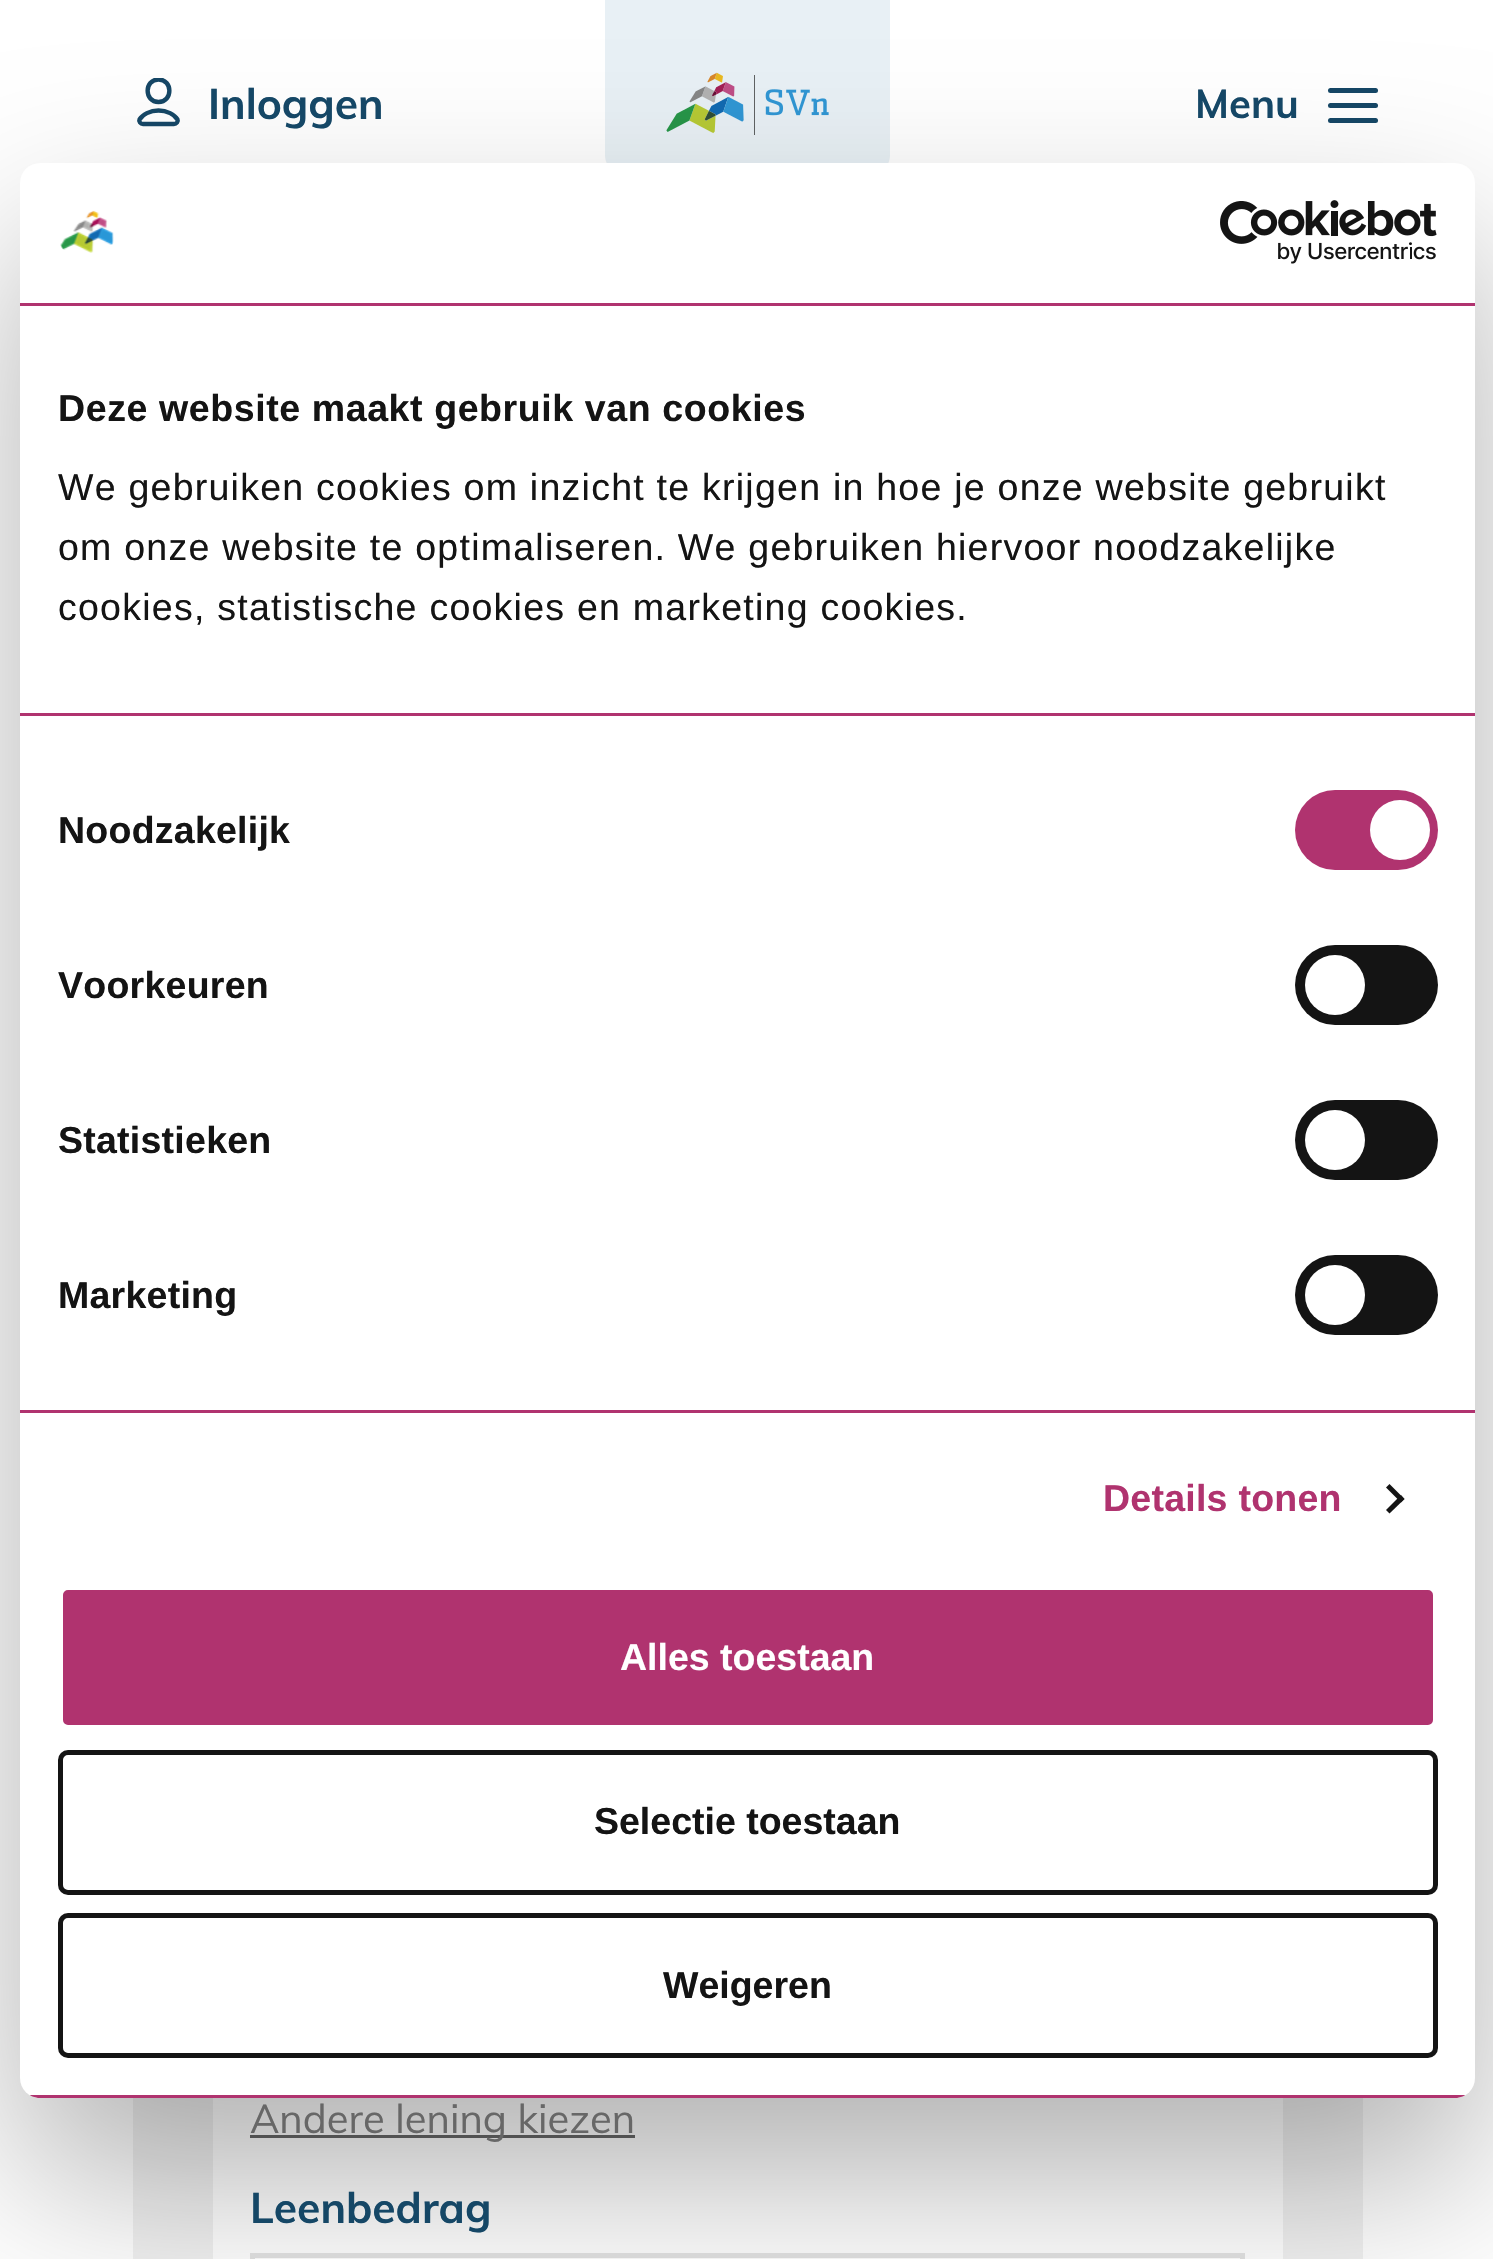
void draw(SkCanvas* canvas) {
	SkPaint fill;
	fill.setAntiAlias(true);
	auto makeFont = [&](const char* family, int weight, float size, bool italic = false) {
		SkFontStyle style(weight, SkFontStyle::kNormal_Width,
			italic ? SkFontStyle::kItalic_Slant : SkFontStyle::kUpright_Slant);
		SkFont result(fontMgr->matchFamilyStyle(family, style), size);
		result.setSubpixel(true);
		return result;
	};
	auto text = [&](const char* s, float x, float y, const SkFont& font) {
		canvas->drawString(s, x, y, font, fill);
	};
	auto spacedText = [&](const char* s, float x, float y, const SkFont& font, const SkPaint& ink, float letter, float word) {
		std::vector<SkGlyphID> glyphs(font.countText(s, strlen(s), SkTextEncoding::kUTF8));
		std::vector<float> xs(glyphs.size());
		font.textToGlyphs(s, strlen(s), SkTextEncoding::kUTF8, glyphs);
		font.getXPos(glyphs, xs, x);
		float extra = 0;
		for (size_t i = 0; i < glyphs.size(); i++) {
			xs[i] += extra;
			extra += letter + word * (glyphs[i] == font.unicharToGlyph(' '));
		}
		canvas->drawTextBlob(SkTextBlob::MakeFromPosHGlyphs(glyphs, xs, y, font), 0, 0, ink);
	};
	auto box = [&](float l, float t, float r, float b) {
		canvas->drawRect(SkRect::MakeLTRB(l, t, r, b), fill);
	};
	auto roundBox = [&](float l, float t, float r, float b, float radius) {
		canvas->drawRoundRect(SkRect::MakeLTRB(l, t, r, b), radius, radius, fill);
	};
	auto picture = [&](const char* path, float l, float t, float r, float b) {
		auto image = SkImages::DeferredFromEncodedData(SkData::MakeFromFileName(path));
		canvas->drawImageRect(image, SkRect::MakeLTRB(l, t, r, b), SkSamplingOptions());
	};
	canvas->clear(0xFFFFFFFF);
	canvas->save();
	canvas->clipRect(SkRect::MakeLTRB(135, 78, 180, 128));
	fill.setStyle(SkPaint::kStroke_Style);
	fill.setStrokeWidth(4.4f);
	fill.setStrokeCap(SkPaint::kRound_Cap);
	fill.setStrokeJoin(SkPaint::kRound_Join);
	fill.setColor(0xFF154766);
	canvas->drawPath(SkPathBuilder().moveTo(158.5f, 102).cubicTo(173, 102, 173, 79.5f, 158.5f, 79.5f).cubicTo(144, 79.5f, 144, 102, 158.5f, 102).close().detach(), fill);
	canvas->restore();
	canvas->drawPath(SkPathBuilder().moveTo(143, 124).cubicTo(140.5f, 124, 138.5f, 121.5f, 139.5f, 119.5f).cubicTo(142.5f, 114.5f, 150, 110.5f, 158.5f, 110.5f).cubicTo(167, 110.5f, 174.5f, 114.5f, 177.5f, 119.5f).cubicTo(178.5f, 121.5f, 176.5f, 124, 174, 124).close().detach(), fill);
	fill.setStyle(SkPaint::kFill_Style);
	fill.setColor(0xFFE8F0F5);
	canvas->drawPath(SkPathBuilder().moveTo(605, -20).lineTo(890, -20).lineTo(890, 155).cubicTo(890, 166, 881, 175, 870, 175).lineTo(625, 175).cubicTo(614, 175, 605, 166, 605, 155).close().detach(), fill);
	picture("image0.png", 666, 72, 829, 135);
	fill.setColor(0xFF154766);
	roundBox(1328, 103, 1378, 108, 2.5f);
	roundBox(1328, 88, 1378, 93, 2.5f);
	roundBox(1328, 118, 1378, 123, 2.5f);
	fill.setColor(0xFFF1F1F1);
	box(133, 2098, 1363, 2259);
	fill.setColor(0xFFFFFFFF);
	box(213, 2098, 1283, 2259);
	fill.setColor(0xFF676767);
	box(250, 2135, 635, 2138);
	fill.setStyle(SkPaint::kStroke_Style);
	fill.setStrokeWidth(5);
	fill.setStrokeCap(SkPaint::kButt_Cap);
	fill.setStrokeJoin(SkPaint::kMiter_Join);
	fill.setColor(0xFFE3E3E3);
	canvas->drawRect(SkRect::MakeLTRB(252.5f, 2255.5f, 1242.5f, 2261.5f), fill);
	fill.setStyle(SkPaint::kFill_Style);
	fill.setColor(0x4D000000);
	fill.setMaskFilter(SkMaskFilter::MakeBlur(kNormal_SkBlurStyle, 85));
	canvas->drawRoundRect(SkRect::MakeLTRB(20, 243, 1475, 2178), 20, 20, fill);
	fill.setMaskFilter(nullptr);
	fill.setColor(0xFFFFFFFF);
	roundBox(20, 163, 1475, 2098, 20);
	fill.setColor(0xFFB0336F);
	box(20, 303, 1475, 306);
	picture("image1.png", 60, 210, 114, 253);
	picture("image2.png", 1220, 200, 1437, 264);
	box(20, 713, 1475, 716);
	box(20, 1410, 1475, 1413);
	roundBox(1295, 790, 1438, 870, 40);
	fill.setColor(0xFFFFFFFF);
	canvas->drawCircle(1400, 830, 30, fill);
	fill.setColor(0xFF141414);
	roundBox(1295, 945, 1438, 1025, 40);
	fill.setColor(0xFFFFFFFF);
	canvas->drawCircle(1335, 985, 30, fill);
	fill.setColor(0xFF141414);
	roundBox(1295, 1100, 1438, 1180, 40);
	fill.setColor(0xFFFFFFFF);
	canvas->drawCircle(1335, 1140, 30, fill);
	fill.setColor(0xFF141414);
	roundBox(1295, 1255, 1438, 1335, 40);
	fill.setColor(0xFFFFFFFF);
	canvas->drawCircle(1335, 1295, 30, fill);
	fill.setColor(0xFF141414);
	canvas->drawPath(SkPathBuilder().moveTo(1389.5f, 1484).lineTo(1404.5f, 1499).lineTo(1401, 1502.5f).lineTo(1386, 1487.5f).close().detach(), fill);
	canvas->drawPath(SkPathBuilder().moveTo(1401, 1495).lineTo(1404.5f, 1499).lineTo(1389.5f, 1513.5f).lineTo(1386, 1510).close().detach(), fill);
	canvas->save();
	canvas->clipPath(SkPathBuilder().moveTo(40, 163).lineTo(1455, 163).cubicTo(1466, 163, 1475, 172, 1475, 183).lineTo(1475, 2078).cubicTo(1475, 2089, 1466, 2098, 1455, 2098).lineTo(40, 2098).cubicTo(29, 2098, 20, 2089, 20, 2078).lineTo(20, 183).cubicTo(20, 172, 29, 163, 40, 163).close().detach(), true);
	fill.setColor(0xFFB0336F);
	box(29, 2095, 1466, 2098);
	canvas->restore();
	canvas->drawRoundRect(SkRect::MakeLTRB(60.5f, 1587.5f, 1435.5f, 1727.5f), 7.5f, 7.5f, fill);
	fill.setStyle(SkPaint::kStroke_Style);
	fill.setColor(0xFFFFFFFF);
	canvas->drawRoundRect(SkRect::MakeLTRB(60.5f, 1587.5f, 1435.5f, 1727.5f), 7.5f, 7.5f, fill);
	fill.setColor(0xFF141414);
	canvas->drawRoundRect(SkRect::MakeLTRB(60.5f, 1752.5f, 1435.5f, 1892.5f), 7.5f, 7.5f, fill);
	canvas->drawRoundRect(SkRect::MakeLTRB(60.5f, 1915.5f, 1435.5f, 2055.5f), 7.5f, 7.5f, fill);
	auto font1 = makeFont("Mulish", 700, 42.5f);
	fill.setStyle(SkPaint::kFill_Style);
	fill.setColor(0xFF154766);
	text("Inloggen", 208, 119, font1);
	auto font2 = makeFont("Mulish", 700, 40);
	text("Menu", 1195, 118, font2);
	auto font3 = makeFont("Mulish", 400, 40);
	fill.setColor(0xFF676767);
	text("Andere lening kiezen", 250, 2133, font3);
	fill.setColor(0xFF154766);
	text("Leenbedrag", 250, 2223, font1);
	auto font4 = makeFont("Liberation Sans", 700, 37.5f);
	fill.setColor(0xFF141414);
	spacedText("Deze website maakt gebruik van cookies", 58, 421, font4, fill, 0.6f, 0);
	auto font5 = makeFont("Liberation Sans", 400, 37.5f);
	spacedText("We gebruiken cookies om inzicht te krijgen in hoe je onze website gebruikt", 58, 500, font5, fill, 1.25f, 0);
	spacedText("om onze website te optimaliseren. We gebruiken hiervoor noodzakelijke", 58, 560, font5, fill, 1.25f, 0);
	spacedText("cookies, statistische cookies en marketing cookies.", 58, 620, font5, fill, 1.25f, 0);
	spacedText("Noodzakelijk", 58, 843, font4, fill, 0.25f, 0);
	spacedText("Voorkeuren", 58, 998, font4, fill, 0.25f, 0);
	spacedText("Statistieken", 58, 1153, font4, fill, 0.25f, 0);
	spacedText("Marketing", 58, 1308, font4, fill, 0.25f, 0);
	fill.setColor(0xFFB0336F);
	spacedText("Details tonen", 1103, 1511, font4, fill, 0.25f, 0);
	fill.setColor(0xFFFFFFFF);
	text("Alles toestaan", 620, 1670, font4);
	fill.setColor(0xFF141414);
	text("Selectie toestaan", 594, 1834, font4);
	text("Weigeren", 663, 1998, font4);
}
